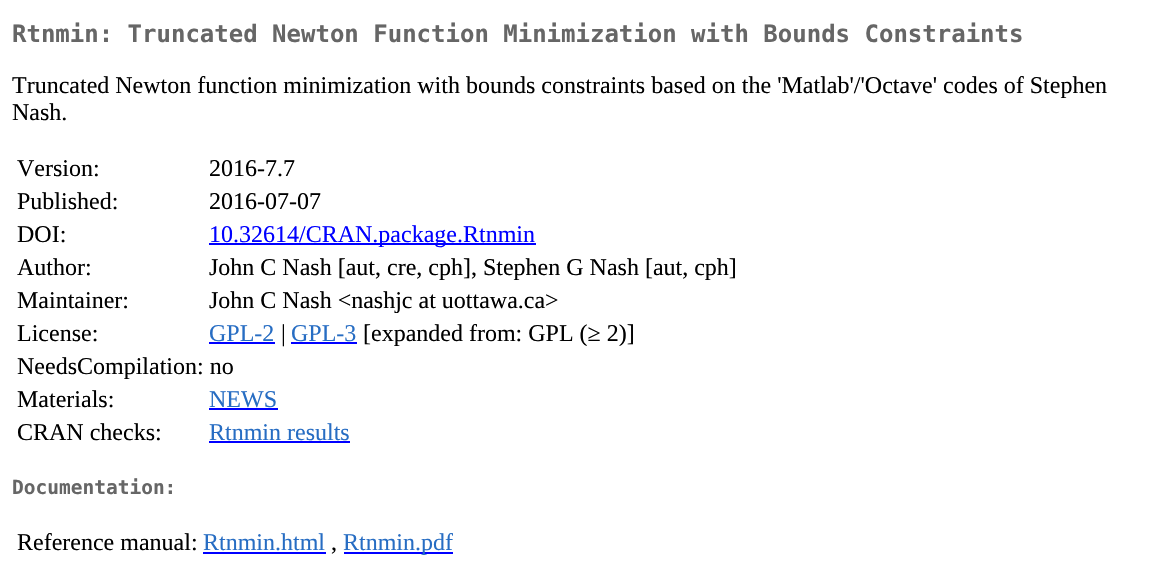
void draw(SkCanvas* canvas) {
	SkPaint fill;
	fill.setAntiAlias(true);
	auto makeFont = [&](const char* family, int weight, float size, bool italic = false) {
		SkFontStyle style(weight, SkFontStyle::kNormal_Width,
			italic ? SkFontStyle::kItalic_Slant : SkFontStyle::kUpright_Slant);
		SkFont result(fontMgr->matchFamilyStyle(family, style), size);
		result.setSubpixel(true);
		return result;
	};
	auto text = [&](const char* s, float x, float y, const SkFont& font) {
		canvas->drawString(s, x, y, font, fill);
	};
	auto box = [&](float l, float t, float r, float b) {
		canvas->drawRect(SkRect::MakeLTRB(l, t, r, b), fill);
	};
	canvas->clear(0xFFFFFFFF);
	fill.setColor(0xFF0000FF);
	box(209, 243, 536, 245);
	box(209, 342, 275, 344);
	box(291, 342, 357, 344);
	box(209, 408, 278, 410);
	box(209, 441, 350, 443);
	box(203, 552, 326, 554);
	box(344, 552, 453, 554);
	auto font1 = makeFont("DejaVu Sans Mono", 700, 24);
	fill.setColor(0xFF666666);
	text("Rtnmin: Truncated Newton Function Minimization with Bounds Constraints", 12, 42, font1);
	auto font2 = makeFont("Liberation Serif", 400, 24);
	fill.setColor(0xFF000000);
	text("Truncated Newton function minimization with bounds constraints based on the 'Matlab'/'Octave' codes of Stephen", 12, 93, font2);
	text("Nash.", 12, 120, font2);
	text("Version:", 17, 176, font2);
	text("2016-7.7", 209, 176, font2);
	text("Published:", 17, 209, font2);
	text("2016-07-07", 209, 209, font2);
	text("DOI:", 17, 242, font2);
	fill.setColor(0xFF0000FF);
	text("10.32614/CRAN.package.Rtnmin", 209, 242, font2);
	fill.setColor(0xFF000000);
	text("Author:", 17, 275, font2);
	text("John C Nash [aut, cre, cph], Stephen G Nash [aut, cph]", 209, 275, font2);
	text("Maintainer:", 17, 308, font2);
	text("John C Nash <nashjc at uottawa.ca>", 209, 308, font2);
	text("License:", 17, 341, font2);
	fill.setColor(0xFF276DC3);
	text("GPL-2", 209, 341, font2);
	fill.setColor(0xFF000000);
	text("|", 281, 341, font2);
	fill.setColor(0xFF276DC3);
	text("GPL-3", 291, 341, font2);
	fill.setColor(0xFF000000);
	text("[expanded from: GPL (≥ 2)]", 363, 341, font2);
	text("NeedsCompilation: no", 17, 374, font2);
	text("Materials:", 17, 407, font2);
	fill.setColor(0xFF276DC3);
	text("NEWS", 209, 407, font2);
	fill.setColor(0xFF000000);
	text("CRAN checks:", 17, 440, font2);
	fill.setColor(0xFF276DC3);
	text("Rtnmin results", 209, 440, font2);
	auto font3 = makeFont("DejaVu Sans Mono", 700, 19.5f);
	fill.setColor(0xFF666666);
	text("Documentation:", 12, 494, font3);
	fill.setColor(0xFF000000);
	text("Reference manual:", 17, 550, font2);
	fill.setColor(0xFF276DC3);
	text("Rtnmin.html", 203, 550, font2);
	fill.setColor(0xFF000000);
	text(",", 331, 550, font2);
	fill.setColor(0xFF276DC3);
	text("Rtnmin.pdf", 343, 550, font2);
}
